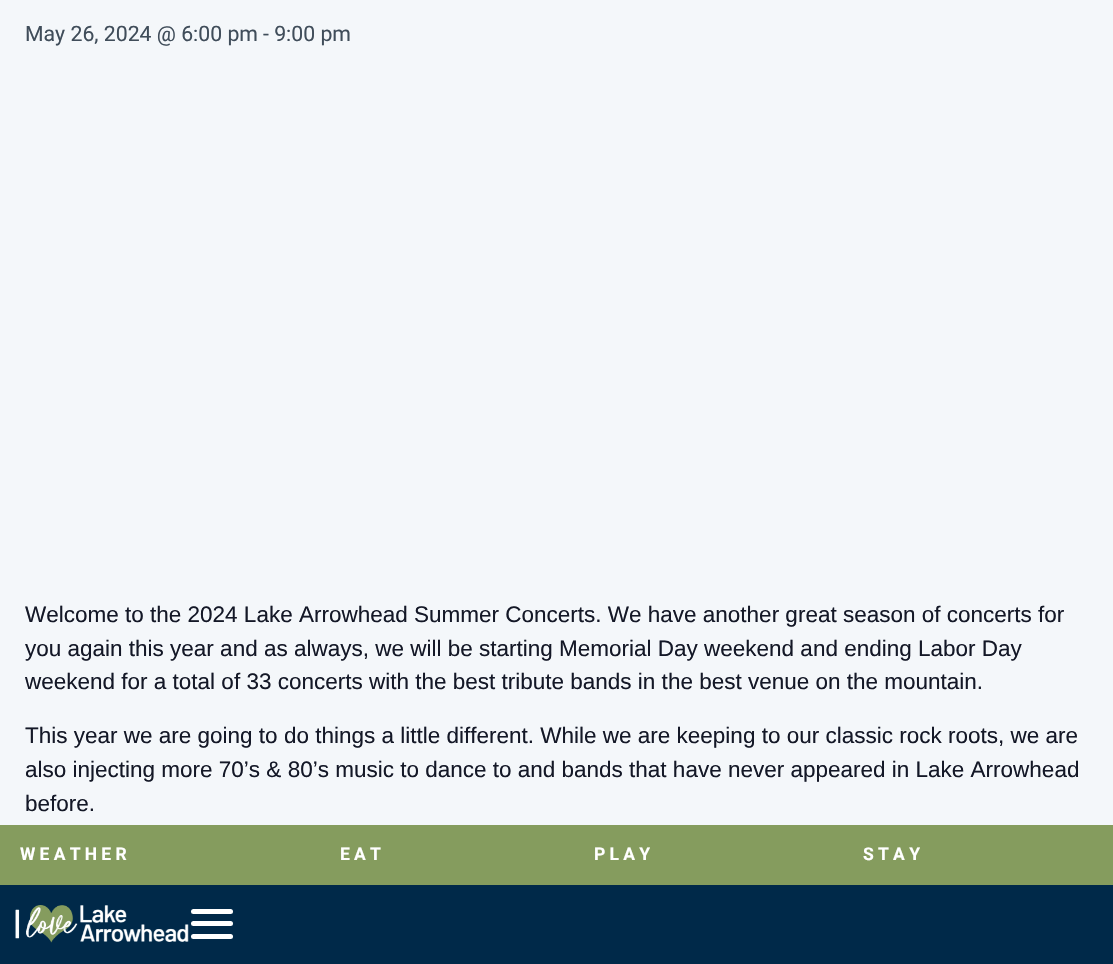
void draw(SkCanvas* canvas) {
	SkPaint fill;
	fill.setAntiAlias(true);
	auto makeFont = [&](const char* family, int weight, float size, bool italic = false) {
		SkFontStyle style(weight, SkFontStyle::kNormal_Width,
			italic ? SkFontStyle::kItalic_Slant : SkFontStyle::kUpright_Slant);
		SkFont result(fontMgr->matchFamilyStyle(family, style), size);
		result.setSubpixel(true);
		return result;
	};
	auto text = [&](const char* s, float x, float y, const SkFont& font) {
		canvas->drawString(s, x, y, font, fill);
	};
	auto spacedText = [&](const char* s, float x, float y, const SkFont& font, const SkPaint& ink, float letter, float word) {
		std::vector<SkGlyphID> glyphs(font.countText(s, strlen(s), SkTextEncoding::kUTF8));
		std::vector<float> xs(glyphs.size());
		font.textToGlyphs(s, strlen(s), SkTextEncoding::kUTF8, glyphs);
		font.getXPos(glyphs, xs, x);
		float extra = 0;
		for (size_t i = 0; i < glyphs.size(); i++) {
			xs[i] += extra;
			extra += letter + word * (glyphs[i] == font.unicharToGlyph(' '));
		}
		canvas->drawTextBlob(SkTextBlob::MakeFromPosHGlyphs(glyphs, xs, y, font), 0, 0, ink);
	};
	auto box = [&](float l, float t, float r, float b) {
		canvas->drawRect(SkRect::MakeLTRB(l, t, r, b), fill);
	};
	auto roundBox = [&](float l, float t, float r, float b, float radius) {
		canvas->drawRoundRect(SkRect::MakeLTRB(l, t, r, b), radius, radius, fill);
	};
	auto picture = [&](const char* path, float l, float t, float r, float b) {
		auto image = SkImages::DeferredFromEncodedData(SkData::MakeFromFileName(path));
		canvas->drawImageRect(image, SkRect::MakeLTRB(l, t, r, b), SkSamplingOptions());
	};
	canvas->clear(0xFFF4F7FA);
	fill.setColor(0xFF002949);
	box(0, 885, 1113, 964);
	fill.setColor(0xFF859C5E);
	box(0, 825, 1113, 885);
	picture("image0.png", 15, 905, 189, 943);
	fill.setColor(0xFFFFFFFF);
	roundBox(191, 909, 233, 914, 2.5f);
	roundBox(191, 921, 233, 926, 2.5f);
	roundBox(191, 934, 233, 939, 2.5f);
	auto font1 = makeFont("Roboto", 400, 21.25f);
	fill.setColor(0xFF404D5A);
	text("May 26, 2024 @ 6:00 pm", 25, 41, font1);
	text("- 9:00 pm", 263, 41, font1);
	auto font2 = makeFont("Liberation Sans", 400, 22.5f);
	fill.setColor(0xFF141827);
	text("Welcome to the 2024 Lake Arrowhead Summer Concerts. We have another great season of concerts for", 25, 622, font2);
	text("you again this year and as always, we will be starting Memorial Day weekend and ending Labor Day", 25, 656, font2);
	text("weekend for a total of 33 concerts with the best tribute bands in the best venue on the mountain.", 25, 689, font2);
	text("This year we are going to do things a little different. While we are keeping to our classic rock roots, we are", 25, 743, font2);
	text("also injecting more 70’s & 80’s music to dance to and bands that have never appeared in Lake Arrowhead", 25, 777, font2);
	text("before.", 25, 811, font2);
	auto font3 = makeFont("Roboto", 700, 17.5f);
	fill.setColor(0xFFFFFFFF);
	spacedText("WEATHER", 20, 860, font3, fill, 4.25f, 0);
	spacedText("EAT", 340, 860, font3, fill, 4.25f, 0);
	spacedText("PLAY", 594, 860, font3, fill, 4.25f, 0);
	spacedText("STAY", 863, 860, font3, fill, 4.25f, 0);
}
